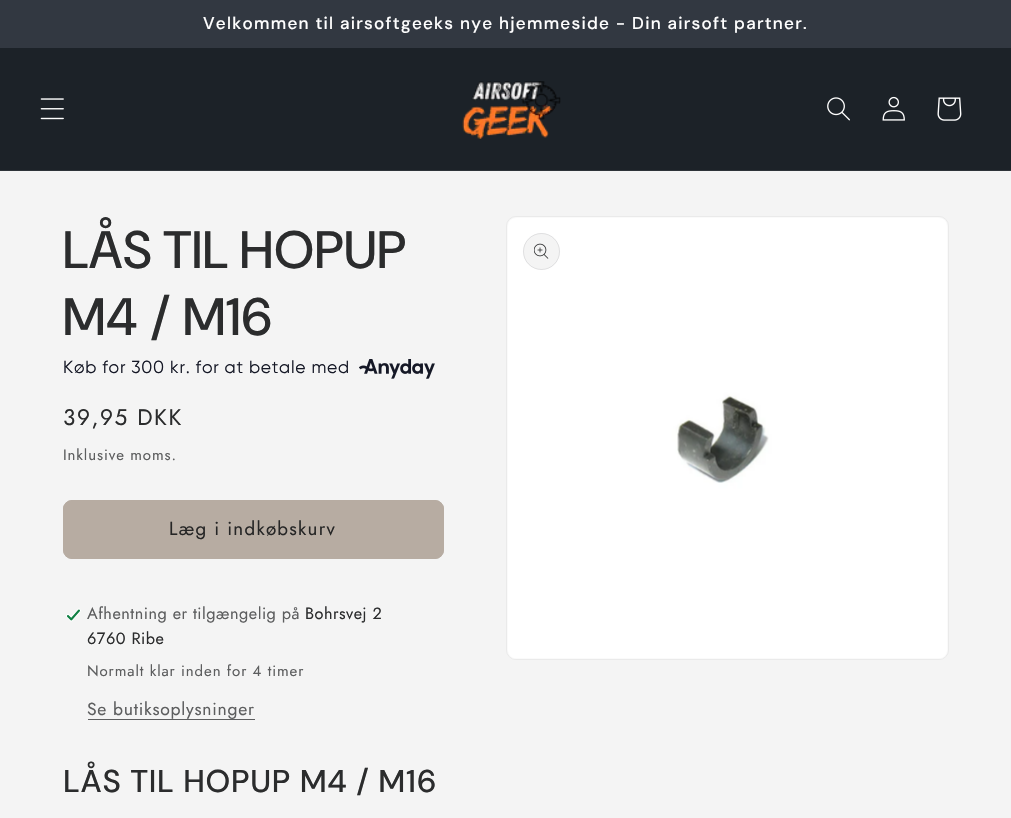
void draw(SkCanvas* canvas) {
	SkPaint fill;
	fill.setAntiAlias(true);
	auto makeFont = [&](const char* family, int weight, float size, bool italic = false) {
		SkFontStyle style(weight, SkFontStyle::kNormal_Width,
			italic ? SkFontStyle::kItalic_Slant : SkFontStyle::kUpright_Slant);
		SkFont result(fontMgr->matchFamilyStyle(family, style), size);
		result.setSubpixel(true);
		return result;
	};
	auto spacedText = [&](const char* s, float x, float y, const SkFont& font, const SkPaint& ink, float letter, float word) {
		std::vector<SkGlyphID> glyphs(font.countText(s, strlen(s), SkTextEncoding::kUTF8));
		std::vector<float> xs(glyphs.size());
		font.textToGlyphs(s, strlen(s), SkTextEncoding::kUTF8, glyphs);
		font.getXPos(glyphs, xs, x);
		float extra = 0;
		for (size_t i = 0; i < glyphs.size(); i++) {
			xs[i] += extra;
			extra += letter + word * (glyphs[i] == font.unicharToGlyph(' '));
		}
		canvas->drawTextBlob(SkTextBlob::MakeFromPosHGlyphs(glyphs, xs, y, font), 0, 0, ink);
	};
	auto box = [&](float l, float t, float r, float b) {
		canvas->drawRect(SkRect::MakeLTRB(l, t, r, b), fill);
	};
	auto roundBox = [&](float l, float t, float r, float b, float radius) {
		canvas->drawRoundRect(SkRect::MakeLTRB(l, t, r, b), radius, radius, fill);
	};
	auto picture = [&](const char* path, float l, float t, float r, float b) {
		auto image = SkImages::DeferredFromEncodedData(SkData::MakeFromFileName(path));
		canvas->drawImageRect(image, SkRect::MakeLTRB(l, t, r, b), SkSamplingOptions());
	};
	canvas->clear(0xFFF4F4F4);
	fill.setColor(0xFF323841);
	box(0, 0, 1011, 48);
	fill.setColor(0xFF1C2228);
	box(0, 48, 1011, 170);
	fill.setColor(0xFF2E3439);
	box(0, 170, 1011, 171);
	picture("image0.png", 40, 98, 64, 120);
	picture("image1.png", 462, 81, 561, 139);
	picture("image2.png", 827, 97, 850, 121);
	picture("image3.png", 882, 96, 905, 121);
	picture("image4.png", 937, 97, 962, 121);
	picture("image5.png", 359, 359, 435, 379);
	fill.setColor(0xFFB7ACA2);
	roundBox(63, 500, 444, 559, 9);
	fill.setStyle(SkPaint::kStroke_Style);
	fill.setStrokeWidth(1);
	canvas->drawRoundRect(SkRect::MakeLTRB(63.5f, 500.5f, 443.5f, 558.5f), 8.5f, 8.5f, fill);
	picture("image6.png", 66, 608, 81, 622);
	fill.setStyle(SkPaint::kFill_Style);
	fill.setColor(0xFF5D5E5F);
	box(88, 719, 255, 720);
	fill.setStyle(SkPaint::kStroke_Style);
	fill.setColor(0xFFEAEAEA);
	canvas->drawRoundRect(SkRect::MakeLTRB(506.5f, 216.5f, 948.5f, 659.5f), 9.5f, 9.5f, fill);
	picture("image7.png", 507, 217, 948, 659);
	fill.setStyle(SkPaint::kFill_Style);
	fill.setColor(0xFFF4F4F4);
	canvas->drawCircle(541.5f, 251.5f, 18.5f, fill);
	fill.setStyle(SkPaint::kStroke_Style);
	fill.setColor(0x1A2B2C2D);
	canvas->drawCircle(541.5f, 251.5f, 18, fill);
	picture("image8.png", 534, 243, 549, 259);
	auto font1 = makeFont("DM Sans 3", 500, 17.05f);
	fill.setStyle(SkPaint::kFill_Style);
	fill.setColor(0xFFFFFFFF);
	spacedText("Velkommen til airsoftgeeks nye hjemmeside - Din airsoft partner.", 203, 29, font1, fill, 1.25f, 0);
	auto font2 = makeFont("DM Sans", 500, 52.5f);
	fill.setColor(0xFF2B2C2D);
	spacedText("LÅS TIL HOPUP", 63, 268, font2, fill, 0.75f, 0);
	spacedText("M4 / M16", 63, 335, font2, fill, 0.75f, 0);
	auto font3 = makeFont("Gilroy", 400, 17.5f);
	fill.setColor(0xFF151826);
	spacedText("Køb for 300 kr. for at betale med", 63, 373, font3, fill, 0.75f, 0);
	auto font4 = makeFont("Jost", 400, 22.5f);
	fill.setColor(0xFF2B2C2D);
	spacedText("39,95 DKK", 63, 425, font4, fill, 1.6f, 0);
	auto font5 = makeFont("Jost", 400, 15);
	fill.setColor(0xFF5D5E5F);
	spacedText("Inklusive moms.", 63, 460, font5, fill, 0.9f, 0);
	auto font6 = makeFont("Jost", 400, 18.75f);
	fill.setColor(0xFF262626);
	spacedText("Læg i indkøbskurv", 169, 535, font6, fill, 1.25f, 0);
	auto font7 = makeFont("Jost", 400, 16.25f);
	fill.setColor(0xFF5D5E5F);
	spacedText("Afhentning er tilgængelig på", 87, 619, font7, fill, 0.5f, 0);
	fill.setColor(0xFF2B2C2D);
	spacedText("Bohrsvej 2", 305, 619, font7, fill, 0.5f, 0);
	spacedText("6760 Ribe", 87, 644, font7, fill, 0.5f, 0);
	fill.setColor(0xFF5D5E5F);
	spacedText("Normalt klar inden for 4 timer", 87, 676, font5, fill, 0.9f, 0);
	auto font8 = makeFont("Jost", 400, 17.5f);
	spacedText("Se butiksoplysninger", 87, 715, font8, fill, 0.75f, 0);
	auto font9 = makeFont("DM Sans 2", 500, 31.5f);
	fill.setColor(0xFF2B2C2D);
	spacedText("LÅS TIL HOPUP M4 / M16", 63, 792, font9, fill, 0.75f, 0);
}
